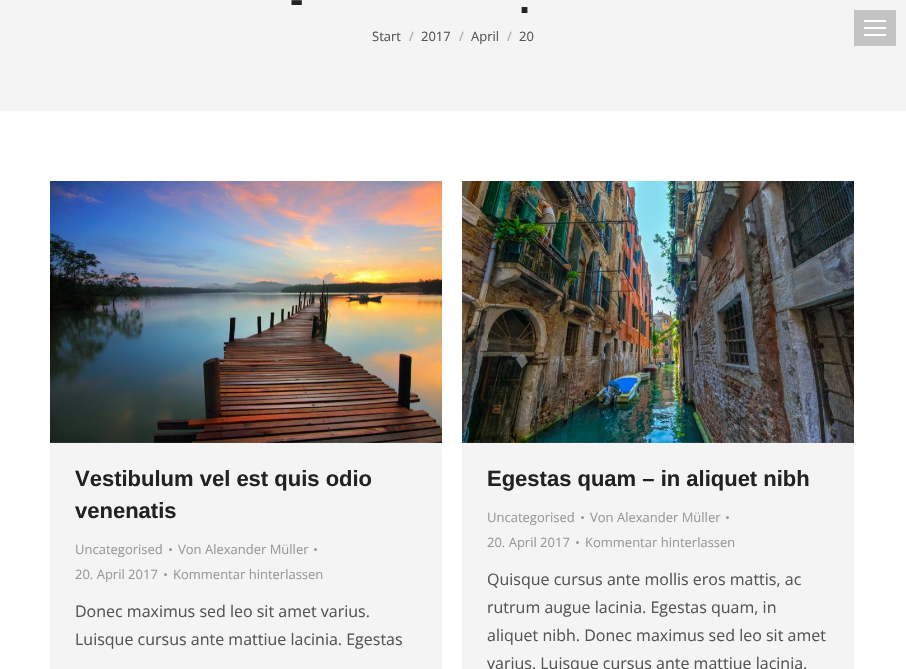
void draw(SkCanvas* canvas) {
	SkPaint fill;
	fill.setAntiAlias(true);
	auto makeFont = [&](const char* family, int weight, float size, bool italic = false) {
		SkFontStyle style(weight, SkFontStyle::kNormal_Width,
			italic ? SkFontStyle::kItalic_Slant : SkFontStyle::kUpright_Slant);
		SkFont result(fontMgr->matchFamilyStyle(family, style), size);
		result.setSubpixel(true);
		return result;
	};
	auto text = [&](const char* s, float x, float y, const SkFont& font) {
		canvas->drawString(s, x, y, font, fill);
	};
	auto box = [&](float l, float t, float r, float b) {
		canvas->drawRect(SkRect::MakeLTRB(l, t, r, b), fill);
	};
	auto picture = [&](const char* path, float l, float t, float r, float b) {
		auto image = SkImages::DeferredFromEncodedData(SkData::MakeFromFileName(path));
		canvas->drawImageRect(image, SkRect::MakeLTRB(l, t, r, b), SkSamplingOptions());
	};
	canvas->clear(0xFFFFFFFF);
	fill.setColor(0xFFF4F4F4);
	box(0, 0, 906, 111);
	fill.setColor(0xFFC3C3C3);
	box(854, 10, 896, 46);
	fill.setColor(0xFFFFFFFF);
	box(864, 20, 886, 22);
	box(864, 27, 886, 29);
	box(864, 34, 886, 36);
	fill.setColor(0xFFF4F4F4);
	box(50, 442, 442, 669);
	picture("image0.png", 50, 181, 442, 443);
	fill.setColor(0xFF999999);
	canvas->drawCircle(170.5f, 549.5f, 1.5f, fill);
	canvas->drawCircle(315.5f, 549.5f, 1.5f, fill);
	canvas->drawCircle(165.5f, 574.5f, 1.5f, fill);
	fill.setColor(0xFFF4F4F4);
	box(462, 442, 854, 669);
	picture("image1.png", 462, 181, 854, 443);
	fill.setColor(0xFF999999);
	canvas->drawCircle(582.5f, 517.5f, 1.5f, fill);
	canvas->drawCircle(727.5f, 517.5f, 1.5f, fill);
	canvas->drawCircle(577.5f, 542.5f, 1.5f, fill);
	auto font1 = makeFont("Liberation Sans", 700, 40);
	fill.setColor(0xFF222222);
	text("-", 290, 13, font1);
	text(".", 519, 13, font1);
	auto font2 = makeFont("Open Sans", 400, 13);
	fill.setColor(0xFF555555);
	text("Start", 372, 41, font2);
	fill.setColor(0xFFA5A5A5);
	text("/", 409, 41, font2);
	fill.setColor(0xFF555555);
	text("2017", 421, 41, font2);
	fill.setColor(0xFFA5A5A5);
	text("/", 459, 41, font2);
	fill.setColor(0xFF555555);
	text("April", 471, 41, font2);
	fill.setColor(0xFFA5A5A5);
	text("/", 507, 41, font2);
	fill.setColor(0xFF555555);
	text("20", 519, 41, font2);
	auto font3 = makeFont("Liberation Sans", 700, 22);
	fill.setColor(0xFF222222);
	text("Vestibulum vel est quis odio", 75, 486, font3);
	text("venenatis", 75, 518, font3);
	fill.setColor(0xFF999999);
	text("Uncategorised", 75, 554, font2);
	text("Von Alexander Müller", 178, 554, font2);
	text("20. April 2017", 75, 579, font2);
	text("Kommentar hinterlassen", 173, 579, font2);
	auto font4 = makeFont("Open Sans", 400, 16);
	fill.setColor(0xFF555555);
	text("Donec maximus sed leo sit amet varius.", 75, 617, font4);
	text("Luisque cursus ante mattiue lacinia. Egestas", 75, 645, font4);
	fill.setColor(0xFF222222);
	text("Egestas quam – in aliquet nibh", 487, 486, font3);
	fill.setColor(0xFF999999);
	text("Uncategorised", 487, 522, font2);
	text("Von Alexander Müller", 590, 522, font2);
	text("20. April 2017", 487, 547, font2);
	text("Kommentar hinterlassen", 585, 547, font2);
	fill.setColor(0xFF555555);
	text("Quisque cursus ante mollis eros mattis, ac", 487, 585, font4);
	text("rutrum augue lacinia. Egestas quam, in", 487, 613, font4);
	text("aliquet nibh. Donec maximus sed leo sit amet", 487, 641, font4);
	text("varius. Luisque cursus ante mattiue lacinia.", 487, 669, font4);
}
